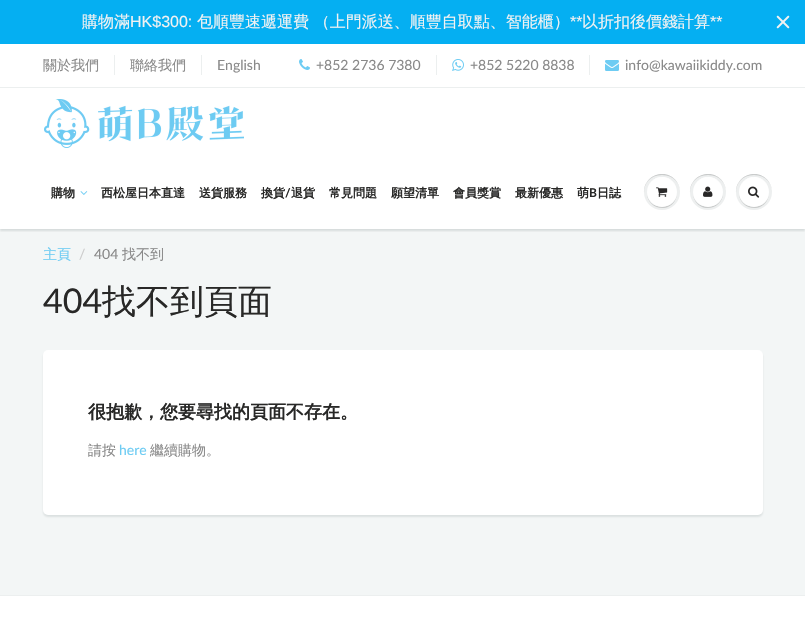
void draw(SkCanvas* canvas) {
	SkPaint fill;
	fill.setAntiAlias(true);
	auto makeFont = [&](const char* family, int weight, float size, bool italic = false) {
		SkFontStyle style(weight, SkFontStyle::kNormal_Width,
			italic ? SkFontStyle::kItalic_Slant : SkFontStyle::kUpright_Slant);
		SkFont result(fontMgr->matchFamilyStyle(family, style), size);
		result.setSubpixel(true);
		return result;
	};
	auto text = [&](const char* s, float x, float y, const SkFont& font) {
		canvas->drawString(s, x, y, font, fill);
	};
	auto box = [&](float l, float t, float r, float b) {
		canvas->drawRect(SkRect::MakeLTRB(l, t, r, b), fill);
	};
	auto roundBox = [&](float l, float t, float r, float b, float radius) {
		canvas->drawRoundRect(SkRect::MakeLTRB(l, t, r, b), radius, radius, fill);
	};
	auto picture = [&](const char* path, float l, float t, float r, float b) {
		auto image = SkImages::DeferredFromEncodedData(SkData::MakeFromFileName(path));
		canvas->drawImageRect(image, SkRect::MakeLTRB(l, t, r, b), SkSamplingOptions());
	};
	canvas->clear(0xFFFFFFFF);
	fill.setColor(0xFF05AFF2);
	box(0, 0, 805, 44);
	picture("image0.png", 776, 15, 790, 29);
	fill.setColor(0xFFECEFEF);
	box(114, 55, 115, 75);
	box(201, 55, 202, 75);
	picture("image1.png", 299, 59, 310, 70);
	box(436, 55, 437, 75);
	picture("image2.png", 452, 59, 464, 71);
	box(589, 55, 590, 75);
	picture("image3.png", 605, 60, 619, 71);
	fill.setColor(0xFFF3F6F6);
	box(0, 229, 805, 595);
	canvas->save();
	canvas->clipRect(SkRect::MakeLTRB(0, 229, 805, 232));
	fill.setColor(0x1F0B191C);
	fill.setMaskFilter(SkMaskFilter::MakeBlur(kNormal_SkBlurStyle, 1));
	canvas->drawRect(SkRect::MakeLTRB(0, 89, 805, 231), fill);
	fill.setMaskFilter(nullptr);
	canvas->restore();
	fill.setColor(0xFFECEFEF);
	box(0, 87, 805, 88);
	picture("image4.png", 44, 99, 244, 148);
	picture("image5.png", 80, 191, 88, 195);
	fill.setColor(0xFFEDEFEF);
	canvas->drawCircle(662, 192, 18, fill);
	fill.setColor(0xFFC9CBCB);
	canvas->drawPath(SkPathBuilder().moveTo(662, 175).cubicTo(674, 175, 680, 183.5f, 680, 192.5f).cubicTo(680, 189, 679, 185, 677, 182).cubicTo(667, 167, 643.5f, 174.5f, 644, 192.5f).cubicTo(644, 183.5f, 650, 175, 662, 175).close().detach(), fill);
	canvas->drawPath(SkPathBuilder().moveTo(677, 192.5f).cubicTo(676.5f, 211.5f, 647.5f, 211.5f, 647, 192.5f).cubicTo(646.5f, 207.5f, 666, 214, 674.5f, 201.5f).cubicTo(676, 199, 677, 195.5f, 677, 192.5f).close().detach(), fill);
	fill.setColor(0xFFFFFFFF);
	canvas->drawCircle(662, 192, 15, fill);
	canvas->drawPath(SkPathBuilder().moveTo(662, 178).cubicTo(672, 178, 677, 185, 677, 192.5f).cubicTo(677, 189.5f, 676, 186, 674.5f, 183.5f).cubicTo(666, 171, 646.5f, 177.5f, 647, 192.5f).cubicTo(647, 185, 652, 178, 662, 178).close().detach(), fill);
	picture("image6.png", 656, 187, 668, 197);
	fill.setColor(0xFFEDEFEF);
	canvas->drawCircle(708, 192, 18, fill);
	fill.setColor(0xFFC9CBCB);
	canvas->drawPath(SkPathBuilder().moveTo(708, 175).cubicTo(720, 175, 726, 183.5f, 726, 192.5f).cubicTo(726, 189, 725, 185, 723, 182).cubicTo(713, 167, 689.5f, 174.5f, 690, 192.5f).cubicTo(690, 183.5f, 696, 175, 708, 175).close().detach(), fill);
	canvas->drawPath(SkPathBuilder().moveTo(723, 192.5f).cubicTo(722.5f, 211.5f, 693.5f, 211.5f, 693, 192.5f).cubicTo(693, 195.5f, 694, 199, 695.5f, 201.5f).cubicTo(704, 214, 723.5f, 207.5f, 723, 192.5f).close().detach(), fill);
	fill.setColor(0xFFFFFFFF);
	canvas->drawCircle(708, 192, 15, fill);
	canvas->drawPath(SkPathBuilder().moveTo(708, 178).cubicTo(718, 178, 723, 185, 723, 192.5f).cubicTo(723, 189.5f, 722, 186, 720.5f, 183.5f).cubicTo(712, 171, 692.5f, 177.5f, 693, 192.5f).cubicTo(693, 185, 698, 178, 708, 178).close().detach(), fill);
	picture("image7.png", 703, 186, 713, 197);
	fill.setColor(0xFFEDEFEF);
	canvas->drawCircle(754, 192, 18, fill);
	fill.setColor(0xFFC9CBCB);
	canvas->drawPath(SkPathBuilder().moveTo(754, 175).cubicTo(766, 175, 772, 183.5f, 772, 192.5f).cubicTo(772, 189, 771, 185, 769, 182).cubicTo(759, 167, 735.5f, 174.5f, 736, 192.5f).cubicTo(736, 183.5f, 742, 175, 754, 175).close().detach(), fill);
	canvas->drawPath(SkPathBuilder().moveTo(769, 192.5f).cubicTo(768.5f, 211.5f, 739.5f, 211.5f, 739, 192.5f).cubicTo(738.5f, 207.5f, 758, 214, 766.5f, 201.5f).cubicTo(768, 199, 769, 195.5f, 769, 192.5f).close().detach(), fill);
	fill.setColor(0xFFFFFFFF);
	canvas->drawCircle(754, 192, 15, fill);
	canvas->drawPath(SkPathBuilder().moveTo(754, 178).cubicTo(764, 178, 769, 185, 769, 192.5f).cubicTo(769, 189.5f, 768, 186, 766.5f, 183.5f).cubicTo(758, 171, 738.5f, 177.5f, 739, 192.5f).cubicTo(739, 185, 744, 178, 754, 178).close().detach(), fill);
	picture("image8.png", 748, 186, 760, 198);
	fill.setColor(0x1A0B191C);
	fill.setMaskFilter(SkMaskFilter::MakeBlur(kNormal_SkBlurStyle, 1));
	canvas->drawRoundRect(SkRect::MakeLTRB(43, 352, 763, 517), 5, 5, fill);
	fill.setMaskFilter(nullptr);
	fill.setColor(0xFFFFFFFF);
	roundBox(43, 350, 763, 515, 5);
	fill.setColor(0xFFECEFEF);
	box(0, 595, 805, 596);
	auto font1 = makeFont("WenQuanYi Zen Hei", 500, 16);
	fill.setColor(0xFFF2F2F2);
	text("購物滿", 82, 27, font1);
	auto font2 = makeFont("Liberation Sans", 400, 16);
	text("HK$300:", 130, 27, font2);
	text("包順豐速遞運費 （上門派送、順豐自取點、智能櫃）", 197, 27, font1);
	text("**", 570, 27, font2);
	text("以折扣後價錢計算", 582, 27, font1);
	text("**", 710, 27, font2);
	auto font3 = makeFont("WenQuanYi Zen Hei", 500, 14);
	fill.setColor(0xFF898989);
	text("關於我們", 43, 70, font3);
	text("聯絡我們", 130, 70, font3);
	auto font4 = makeFont("Lato", 400, 14);
	text("English", 217, 70, font4);
	text("+852 2736 7380", 316, 70, font4);
	text("+852 5220 8838", 470, 70, font4);
	text("info@kawaiikiddy.com", 625, 70, font4);
	auto font5 = makeFont("WenQuanYi Zen Hei", 700, 12);
	fill.setColor(0xFF282827);
	text("購物", 51, 197, font5);
	text("西松屋日本直達", 101, 197, font5);
	text("送貨服務", 199, 197, font5);
	text("換貨", 261, 197, font5);
	auto font6 = makeFont("Lato", 700, 12);
	text("/", 285, 197, font6);
	text("退貨", 291, 197, font5);
	text("常見問題", 329, 197, font5);
	text("願望清單", 391, 197, font5);
	text("會員獎賞", 453, 197, font5);
	text("最新優惠", 515, 197, font5);
	text("萌", 577, 197, font5);
	text("B", 589, 197, font6);
	text("日誌", 597, 197, font5);
	fill.setColor(0xFF6ECCF3);
	text("主頁", 43, 259, font3);
	fill.setColor(0xFFCCCCCC);
	text("/", 79, 259, font4);
	fill.setColor(0xFF898989);
	text("404", 94, 259, font4);
	text("找不到", 122, 259, font3);
	auto font7 = makeFont("Lato", 400, 34);
	fill.setColor(0xFF282827);
	text("404", 43, 313, font7);
	auto font8 = makeFont("WenQuanYi Zen Hei", 500, 34);
	text("找不到頁面", 102, 313, font8);
	auto font9 = makeFont("WenQuanYi Zen Hei", 700, 18);
	text("很抱歉，您要尋找的頁面不存在。", 88, 418, font9);
	fill.setColor(0xFF898989);
	text("請按", 88, 455, font3);
	fill.setColor(0xFF6ECCF3);
	text("here", 119, 455, font4);
	fill.setColor(0xFF898989);
	text("繼續購物。", 150, 455, font3);
}
